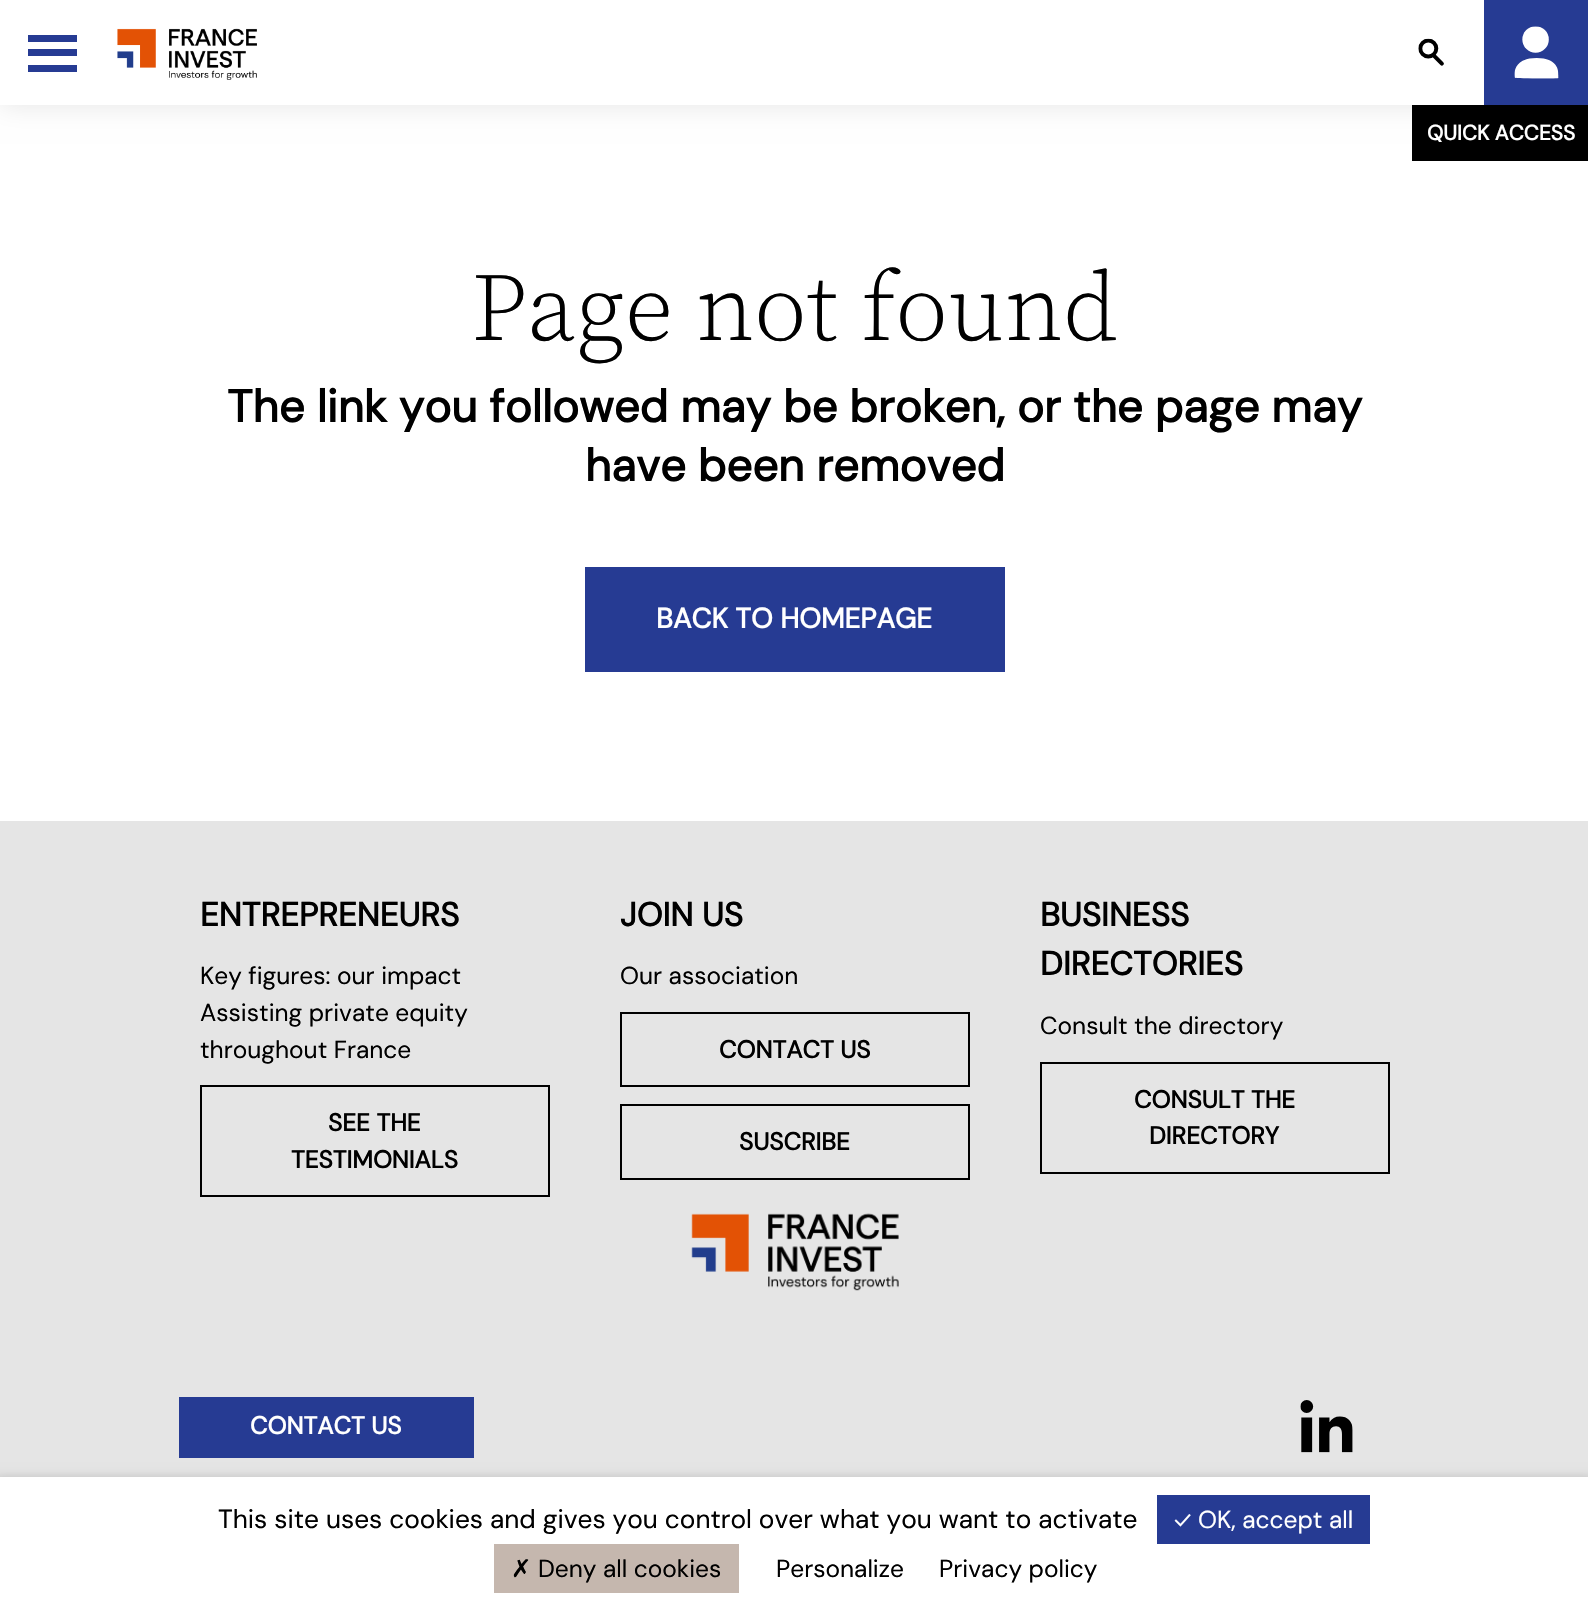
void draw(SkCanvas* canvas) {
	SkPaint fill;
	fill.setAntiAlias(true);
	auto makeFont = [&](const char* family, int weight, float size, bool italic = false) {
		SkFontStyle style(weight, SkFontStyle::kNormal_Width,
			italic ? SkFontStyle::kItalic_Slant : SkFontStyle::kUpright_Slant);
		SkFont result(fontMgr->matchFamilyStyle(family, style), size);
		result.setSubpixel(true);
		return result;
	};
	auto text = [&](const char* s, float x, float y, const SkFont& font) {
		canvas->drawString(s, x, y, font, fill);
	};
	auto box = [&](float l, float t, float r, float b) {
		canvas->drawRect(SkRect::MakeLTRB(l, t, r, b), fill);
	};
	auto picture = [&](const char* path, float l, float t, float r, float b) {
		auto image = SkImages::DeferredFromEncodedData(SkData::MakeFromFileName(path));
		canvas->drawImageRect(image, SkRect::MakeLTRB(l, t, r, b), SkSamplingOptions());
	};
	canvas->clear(0xFFFFFFFF);
	fill.setColor(0x1A000000);
	fill.setMaskFilter(SkMaskFilter::MakeBlur(kNormal_SkBlurStyle, 13));
	canvas->drawRect(SkRect::MakeLTRB(0, 0, 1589, 105), fill);
	fill.setMaskFilter(nullptr);
	fill.setColor(0xFFFFFFFF);
	box(0, 0, 1484, 105);
	fill.setColor(0xFF263B93);
	box(28, 35, 77, 42);
	box(28, 49, 77, 56);
	box(28, 65, 77, 72);
	picture("image0.png", 117, 28, 257, 80);
	picture("image1.png", 1418, 38, 1444, 66);
	box(1484, 0, 1588, 105);
	picture("image2.png", 1514, 26, 1559, 79);
	fill.setColor(0xFF000000);
	box(1412, 105, 1588, 161);
	fill.setColor(0xFF263B93);
	box(585, 567, 1005, 672);
	fill.setColor(0xFFE5E5E5);
	box(0, 821, 1588, 1477);
	fill.setStyle(SkPaint::kStroke_Style);
	fill.setStrokeWidth(2);
	fill.setColor(0xFF000000);
	canvas->drawRect(SkRect::MakeLTRB(201, 1086, 549, 1196), fill);
	canvas->drawRect(SkRect::MakeLTRB(621, 1013, 969, 1086), fill);
	canvas->drawRect(SkRect::MakeLTRB(621, 1105, 969, 1179), fill);
	canvas->drawRect(SkRect::MakeLTRB(1041, 1063, 1389, 1173), fill);
	picture("image3.png", 691, 1213, 899, 1291);
	fill.setStyle(SkPaint::kFill_Style);
	fill.setColor(0xFF263B93);
	box(179, 1397, 474, 1458);
	picture("image4.png", 1300, 1400, 1353, 1453);
	fill.setColor(0x29000000);
	fill.setMaskFilter(SkMaskFilter::MakeBlur(kNormal_SkBlurStyle, 5));
	canvas->drawRect(SkRect::MakeLTRB(-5, 1477, 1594, 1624), fill);
	fill.setMaskFilter(nullptr);
	fill.setColor(0xFFFFFFFF);
	box(0, 1477, 1588, 1613);
	fill.setColor(0xFF263B93);
	box(1157, 1495, 1370, 1544);
	fill.setColor(0xFFC5B7AE);
	box(494, 1544, 739, 1593);
	auto font1 = makeFont("DM Sans", 700, 21);
	fill.setColor(0xFFFFFFFF);
	text("QUICK ACCESS", 1427, 140, font1);
	auto font2 = makeFont("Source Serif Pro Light", 300, 96.25f);
	fill.setColor(0xFF000000);
	text("Page not found", 471, 340, font2);
	auto font3 = makeFont("DM Sans", 700, 45.5f);
	text("The link you followed may be broken, or the page may", 227, 422, font3);
	text("have been removed", 585, 481, font3);
	auto font4 = makeFont("DM Sans", 700, 28);
	fill.setColor(0xFFFFFFFF);
	text("BACK TO HOMEPAGE", 656, 628, font4);
	auto font5 = makeFont("DM Sans", 700, 33.25f);
	fill.setColor(0xFF000000);
	text("ENTREPRENEURS", 200, 926, font5);
	auto font6 = makeFont("DM Sans", 400, 24.5f);
	text("Key figures: our impact", 200, 984, font6);
	text("Assisting private equity", 200, 1021, font6);
	text("throughout France", 200, 1058, font6);
	auto font7 = makeFont("DM Sans", 700, 24.5f);
	text("SEE THE", 328, 1131, font7);
	text("TESTIMONIALS", 291, 1168, font7);
	text("JOIN US", 620, 926, font5);
	text("Our association", 620, 984, font6);
	text("CONTACT US", 719, 1058, font7);
	text("SUSCRIBE", 739, 1150, font7);
	text("BUSINESS", 1040, 926, font5);
	text("DIRECTORIES", 1040, 975, font5);
	text("Consult the directory", 1040, 1034, font6);
	text("CONSULT THE", 1134, 1108, font7);
	text("DIRECTORY", 1149, 1144, font7);
	fill.setColor(0xFFFFFFFF);
	text("CONTACT US", 250, 1434, font7);
	auto font8 = makeFont("DM Sans", 400, 26.25f);
	fill.setColor(0xFF000000);
	text("This site uses cookies and gives you control over what you want to activate", 218, 1528, font8);
	auto font9 = makeFont("Ubuntu", 400, 24.5f);
	fill.setColor(0xFFFFFFFF);
	text("✓", 1174, 1528, font9);
	text("OK, accept all", 1198, 1528, font6);
	auto font10 = makeFont("DejaVu Sans", 400, 24.5f);
	fill.setColor(0xFF000000);
	text("✗", 511, 1577, font10);
	text("Deny all cookies", 538, 1577, font6);
	text("Personalize", 776, 1577, font6);
	text("Privacy policy", 939, 1577, font6);
}
